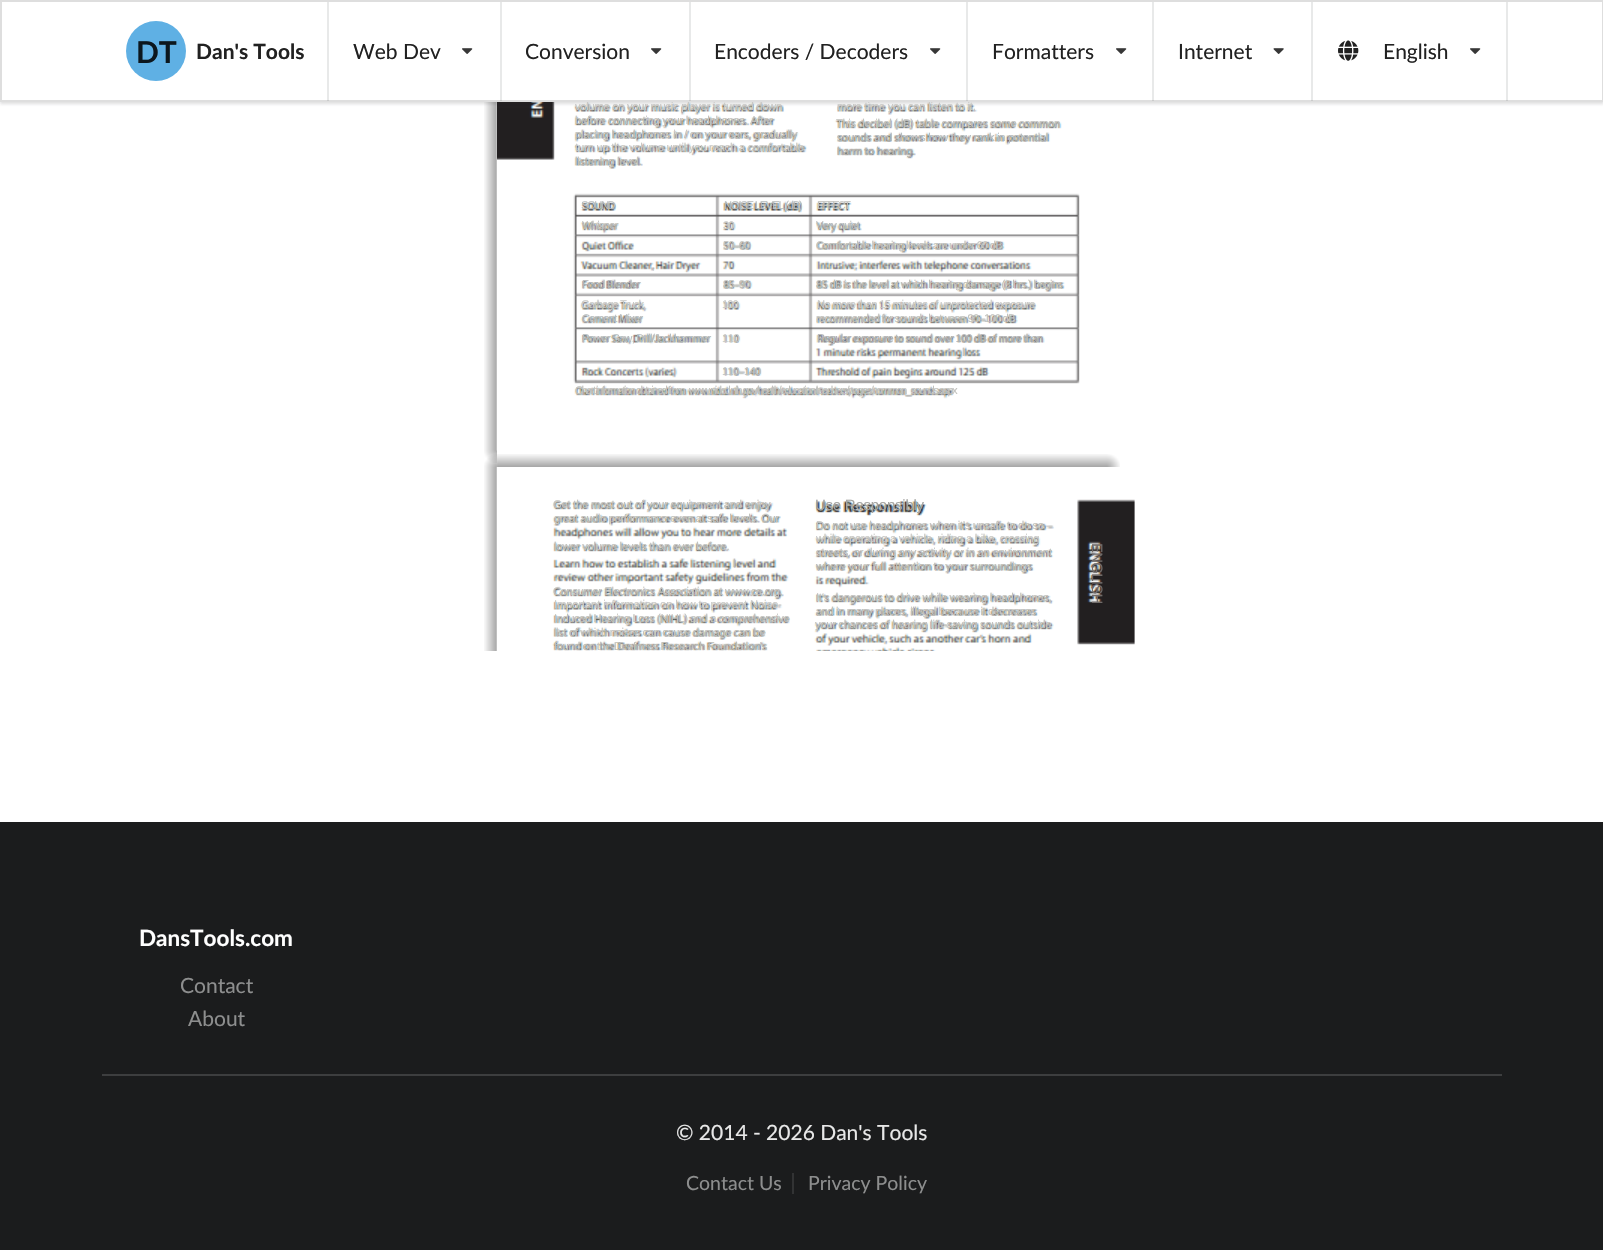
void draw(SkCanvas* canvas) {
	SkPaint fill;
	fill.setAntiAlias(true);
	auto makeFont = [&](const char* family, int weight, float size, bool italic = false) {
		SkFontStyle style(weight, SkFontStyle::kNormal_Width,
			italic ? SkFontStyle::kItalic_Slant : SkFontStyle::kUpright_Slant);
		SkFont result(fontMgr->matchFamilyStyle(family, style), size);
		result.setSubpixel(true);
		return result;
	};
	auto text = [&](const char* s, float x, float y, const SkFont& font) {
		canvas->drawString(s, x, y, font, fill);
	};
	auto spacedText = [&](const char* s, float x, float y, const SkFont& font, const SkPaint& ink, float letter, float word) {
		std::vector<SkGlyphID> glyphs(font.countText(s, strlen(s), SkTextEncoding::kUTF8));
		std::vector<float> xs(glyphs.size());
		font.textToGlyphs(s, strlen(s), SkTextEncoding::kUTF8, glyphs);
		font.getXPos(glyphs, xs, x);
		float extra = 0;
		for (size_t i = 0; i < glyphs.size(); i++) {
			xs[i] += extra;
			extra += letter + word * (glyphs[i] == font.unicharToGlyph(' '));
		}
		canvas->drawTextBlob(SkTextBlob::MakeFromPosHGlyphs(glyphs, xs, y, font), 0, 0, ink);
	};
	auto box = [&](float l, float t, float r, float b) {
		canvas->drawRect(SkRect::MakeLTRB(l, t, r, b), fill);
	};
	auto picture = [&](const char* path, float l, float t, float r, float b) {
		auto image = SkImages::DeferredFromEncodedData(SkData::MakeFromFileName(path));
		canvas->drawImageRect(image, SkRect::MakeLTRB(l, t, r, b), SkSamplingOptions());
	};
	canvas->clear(0xFFFFFFFF);
	picture("image3.png", 484, 102, 497, 463);
	picture("image4.png", 497, 102, 1121, 464);
	fill.setColor(0x26222426);
	fill.setMaskFilter(SkMaskFilter::MakeBlur(kNormal_SkBlurStyle, 1.5f));
	canvas->drawRect(SkRect::MakeLTRB(0, 2, 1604, 104), fill);
	fill.setMaskFilter(nullptr);
	picture("image5.png", 484, 454, 1120, 651);
	picture("image6.png", 497, 467, 1135, 651);
	fill.setColor(0xFF1B1C1D);
	box(0, 822, 1603, 1250);
	fill.setColor(0xFF3D3E3F);
	box(102, 1074, 1502, 1076);
	fill.setColor(0xFF323334);
	box(792, 1173, 794, 1194);
	auto font1 = makeFont("Liberation Sans", 400, 11.25f);
	fill.setColor(0xFFC8C8C5);
	spacedText("volume on your music player is turned down", 575, 110, font1, fill, -0.3f, 0);
	spacedText("more time you can listen to it.", 837, 110, font1, fill, -0.25f, 0);
	fill.setColor(0xFFFFFFFF);
	canvas->drawRect(SkRect::MakeLTRB(1, 1, 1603, 101), fill);
	fill.setStyle(SkPaint::kStroke_Style);
	fill.setStrokeWidth(2);
	fill.setColor(0xFFDEDEDE);
	canvas->drawRect(SkRect::MakeLTRB(1, 1, 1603, 101), fill);
	picture("image0.png", 1470, 48, 1481, 54);
	fill.setStyle(SkPaint::kFill_Style);
	fill.setColor(0x1A222426);
	box(1506, 2, 1508, 101);
	picture("image2.png", 1338, 40, 1359, 61);
	auto font2 = makeFont("Lato", 400, 21);
	fill.setColor(0xFF212121);
	text("English", 1383, 59, font2);
	picture("image1.png", 1273, 48, 1284, 54);
	fill.setColor(0x1A222426);
	box(1311, 2, 1313, 101);
	fill.setColor(0xFF212121);
	text("Internet", 1178, 59, font2);
	picture("image0.png", 1116, 48, 1127, 54);
	fill.setColor(0x1A222426);
	box(1152, 2, 1154, 101);
	fill.setColor(0xFF212121);
	text("Formatters", 992, 59, font2);
	picture("image0.png", 930, 48, 941, 54);
	fill.setColor(0x1A222426);
	box(966, 2, 968, 101);
	fill.setColor(0xFF212121);
	text("Encoders / Decoders", 714, 59, font2);
	picture("image0.png", 651, 48, 662, 54);
	fill.setColor(0x1A222426);
	box(689, 2, 691, 101);
	fill.setColor(0xFF212121);
	text("Conversion", 525, 59, font2);
	picture("image0.png", 462, 48, 473, 54);
	fill.setColor(0x1A222426);
	box(500, 2, 502, 101);
	fill.setColor(0xFF212121);
	text("Web Dev", 353, 59, font2);
	fill.setColor(0xFF5FB0E4);
	canvas->drawCircle(156, 51, 30, fill);
	auto font3 = makeFont("Lato", 700, 30);
	fill.setColor(0xFF0C171E);
	text("DT", 136, 63, font3);
	fill.setColor(0x1A222426);
	box(327, 2, 329, 101);
	auto font4 = makeFont("Lato", 700, 21);
	fill.setColor(0xFF212121);
	text("Dan's Tools", 196, 59, font4);
	fill.setColor(0xFFC1C1BD);
	spacedText("before connecting your headphones. After", 575, 124, font1, fill, -0.3f, 0);
	spacedText("This decibel (dB) table compares some common", 836, 127, font1, fill, -0.4f, 0);
	spacedText("placing headphones in / on your ears, gradually", 575, 138, font1, fill, -0.3f, 0);
	fill.setColor(0xFFB6BBBC);
	spacedText("sounds and shows how they rank in potential", 837, 141, font1, fill, -0.3f, 0);
	fill.setColor(0xFFC8C8C5);
	spacedText("turn up the volume until you reach a comfortable", 575, 151, font1, fill, -0.25f, 0);
	fill.setColor(0xFFBAB6B0);
	spacedText("harm to hearing.", 837, 155, font1, fill, -0.25f, 0);
	fill.setColor(0xFFBEBDB7);
	spacedText("listening level.", 575, 165, font1, fill, -0.25f, 0);
	fill.setColor(0xFFB6BBBC);
	spacedText("SOUND", 581, 209, font1, fill, -1.5f, 0);
	spacedText("NOISE LEVEL (dB)", 724, 209, font1, fill, -1.25f, 0);
	fill.setColor(0xFFC1C1BD);
	spacedText("EFFECT", 817, 209, font1, fill, -2, 0);
	fill.setColor(0xFFBEBDB7);
	spacedText("Whisper", 582, 229, font1, fill, -0.8f, 0);
	fill.setColor(0xFFC8C8C5);
	spacedText("30", 723, 229, font1, fill, -1, 0);
	fill.setColor(0xFFB6BBBC);
	spacedText("Very quiet", 816, 229, font1, fill, -0.75f, 0);
	fill.setColor(0xFFC1C1BD);
	spacedText("50–60", 723, 249, font1, fill, -1, 0);
	spacedText("Comfortable hearing levels are under 60 dB", 816, 249, font1, fill, -0.75f, 0);
	fill.setColor(0xFFB6BBBC);
	spacedText(",", 652, 269, font1, fill, -1, 0);
	fill.setColor(0xFFB2B2B3);
	spacedText("Food Blender", 582, 288, font1, fill, -0.8f, 0);
	fill.setColor(0xFFC1C1BD);
	spacedText("85–90", 723, 288, font1, fill, -1, 0);
	fill.setColor(0xFFBEBDB7);
	spacedText("85 dB is the level at which hearing damage (8 hrs.) begins", 816, 288, font1, fill, -0.75f, 0);
	fill.setColor(0xFFC8C8C5);
	spacedText("Garbage Truck,", 581, 308, font1, fill, -1, 0);
	spacedText("100", 722, 308, font1, fill, -1, 0);
	spacedText("No more than 15 minutes of unprotected exposure", 817, 308, font1, fill, -0.7f, 0);
	fill.setColor(0xFFB6BBBC);
	spacedText("Cement Mixer", 582, 322, font1, fill, -0.8f, 0);
	fill.setColor(0xFFC1C1BD);
	spacedText("recommended for sounds between 90–100 dB", 816, 322, font1, fill, -0.8f, 0);
	fill.setColor(0xFFB6BBBC);
	spacedText("Power Saw, Drill/Jackhammer", 582, 342, font1, fill, -0.8f, 0);
	fill.setColor(0xFFC8C8C5);
	spacedText("110", 722, 342, font1, fill, -0.5f, 0);
	fill.setColor(0xFFB2B2B3);
	spacedText("Regular exposure to sound over 100 dB of more than", 817, 342, font1, fill, -0.8f, 0);
	fill.setColor(0xFFBEBDB7);
	spacedText("l", 962, 356, font1, fill, -0.7f, 0);
	fill.setColor(0xFFBFC2C4);
	spacedText("110–140", 722, 375, font1, fill, -0.75f, 0);
	fill.setColor(0xFFC1C1BD);
	spacedText("Chart information obtained from", 575, 394, font1, fill, -1.59f, 0);
	spacedText("www.nidcd.nih.gov/health/education/teachers/pages/common_sounds.aspx", 689, 394, font1, fill, -1.59f, 0);
	spacedText("Get the most out of your equipment and enjoy", 553, 508, font1, fill, -0.25f, 0);
	auto font5 = makeFont("Liberation Sans", 400, 15);
	fill.setColor(0xFFA5A5A2);
	spacedText("Use Responsibly", 815, 510, font5, fill, -0.25f, 0);
	fill.setColor(0xFFC1C1BD);
	spacedText("great audio performance even at safe levels. Our", 554, 522, font1, fill, -0.4f, 0);
	spacedText("Do not use headphones when it’s unsafe to do so –", 816, 529, font1, fill, -0.4f, 0);
	fill.setColor(0xFFC8C8C5);
	spacedText("while operating a vehicle, riding a bike, crossing", 816, 542, font1, fill, -0.3f, 0);
	fill.setColor(0xFFC1C1BD);
	spacedText("lower volume levels than ever before.", 554, 550, font1, fill, -0.3f, 0);
	spacedText("streets, or during any activity or in an environment", 816, 556, font1, fill, -0.25f, 0);
	fill.setColor(0xFF706B69);
	canvas->save();
	canvas->rotate(90, 1092, 543);
	spacedText("ENGLISH", 1092, 543, font5, fill, -0.75f, 0);
	canvas->restore();
	fill.setColor(0xFFBEBDB7);
	text("l", 733, 567, font1);
	spacedText("where your full attention to your surroundings", 816, 570, font1, fill, -0.2f, 0);
	fill.setColor(0xFFC1C1BD);
	spacedText("Consumer Electronics Association at www.ce.org.", 553, 595, font1, fill, -0.4f, 0);
	spacedText("It‘s dangerous to drive while wearing headphones,", 816, 601, font1, fill, -0.3f, 0);
	fill.setColor(0xFFC8C8C5);
	spacedText("Important information on how to prevent Noise-", 554, 608, font1, fill, -0.15f, 0);
	fill.setColor(0xFFC1C1BD);
	spacedText("and in many places, illegal because it decreases", 816, 615, font1, fill, -0.45f, 0);
	spacedText("Induced Hearing Loss (NIHL) and a comprehensive", 554, 622, font1, fill, -0.45f, 0);
	spacedText("your chances of hearing life-saving sounds outside", 815, 628, font1, fill, -0.33f, 0);
	spacedText("list of which noises can cause damage can be", 554, 636, font1, fill, -0.4f, 0);
	fill.setColor(0xFFBEBDB7);
	spacedText("found on the Deafness Research Foundation’s", 554, 650, font1, fill, -0.45f, 0);
	auto font6 = makeFont("Lato", 700, 22.5f);
	fill.setColor(0xFFFFFFFF);
	text("DansTools.com", 139, 946, font6);
	fill.setColor(0xFF8D8E8E);
	text("Contact", 180, 993, font2);
	text("About", 188, 1026, font2);
	fill.setColor(0xFFE8E8E8);
	text("© 2014 - 2026 Dan's Tools", 676, 1140, font2);
	auto font7 = makeFont("Lato", 400, 19.5f);
	fill.setColor(0xFF8D8E8E);
	text("Contact Us", 686, 1190, font7);
	text("Privacy Policy", 808, 1190, font7);
}
